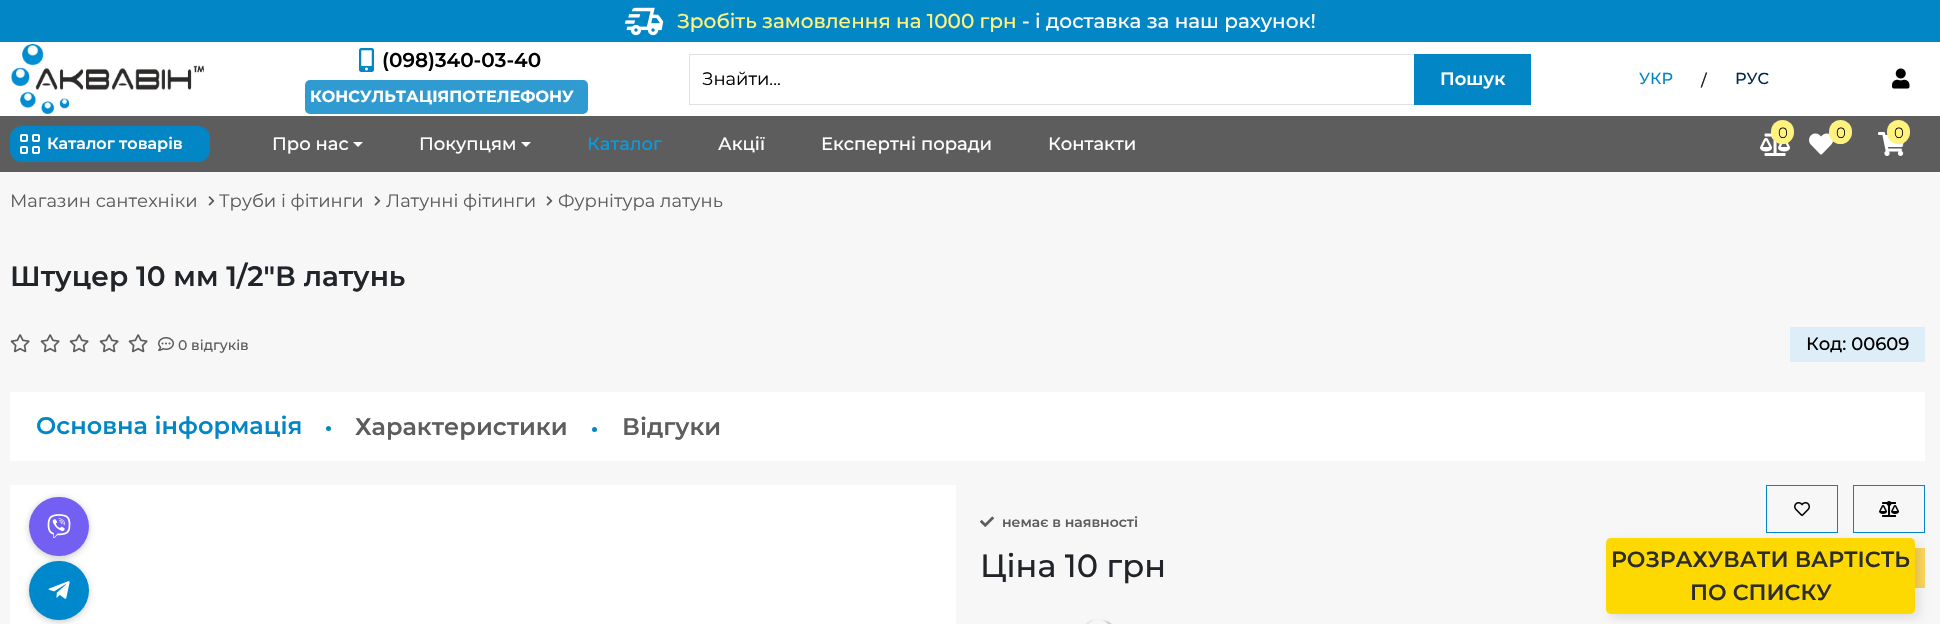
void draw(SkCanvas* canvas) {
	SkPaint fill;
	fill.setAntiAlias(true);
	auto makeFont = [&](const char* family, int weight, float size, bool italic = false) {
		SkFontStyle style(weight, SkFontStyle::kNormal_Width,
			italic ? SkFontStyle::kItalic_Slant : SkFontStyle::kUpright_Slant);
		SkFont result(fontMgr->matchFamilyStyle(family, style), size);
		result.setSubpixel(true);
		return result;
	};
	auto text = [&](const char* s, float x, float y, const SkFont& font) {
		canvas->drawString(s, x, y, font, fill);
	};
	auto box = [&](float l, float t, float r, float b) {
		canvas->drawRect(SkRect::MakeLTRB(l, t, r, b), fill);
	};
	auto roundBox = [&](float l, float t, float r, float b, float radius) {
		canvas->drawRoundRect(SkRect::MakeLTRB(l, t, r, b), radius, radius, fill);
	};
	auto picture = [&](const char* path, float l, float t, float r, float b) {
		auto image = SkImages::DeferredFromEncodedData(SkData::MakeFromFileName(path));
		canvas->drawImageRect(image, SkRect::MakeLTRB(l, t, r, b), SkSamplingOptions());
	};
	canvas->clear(0xFFF7F7F7);
	fill.setColor(0xFF0386C6);
	box(0, 0, 1940, 42);
	picture("image0.png", 624, 7, 664, 36);
	fill.setColor(0xFFFFFFFF);
	box(0, 42, 1940, 116);
	picture("image1.png", 11, 44, 204, 114);
	picture("image2.png", 359, 48, 374, 72);
	fill.setColor(0xFF309BD0);
	roundBox(305, 80, 588, 114, 5);
	fill.setStyle(SkPaint::kStroke_Style);
	fill.setStrokeWidth(1);
	fill.setColor(0xFFDEE2E6);
	canvas->drawRect(SkRect::MakeLTRB(689.5f, 54.5f, 1415.5f, 104.5f), fill);
	fill.setStyle(SkPaint::kFill_Style);
	fill.setColor(0xFF0386C6);
	box(1414, 54, 1531, 105);
	picture("image3.png", 1892, 68, 1910, 89);
	fill.setColor(0xFF5D5D5D);
	box(0, 116, 1940, 172);
	picture("image4.png", 1760, 133, 1790, 156);
	fill.setColor(0xFFFFF27E);
	roundBox(1771, 120, 1794, 144, 11.5f);
	picture("image5.png", 1809, 133, 1833, 155);
	roundBox(1829, 120, 1852, 144, 11.5f);
	picture("image6.png", 1878, 132, 1904, 156);
	roundBox(1887, 120, 1910, 144, 11.5f);
	fill.setColor(0xFF0386C6);
	roundBox(10, 126, 210, 162, 12);
	picture("image7.png", 20, 134, 40, 154);
	fill.setColor(0xFFFFFFFF);
	canvas->drawPath(SkPathBuilder().moveTo(353, 142).lineTo(363, 142).lineTo(358, 147).close().detach(), fill);
	canvas->drawPath(SkPathBuilder().moveTo(521, 142).lineTo(531, 142).lineTo(526, 147).close().detach(), fill);
	picture("image8.png", 208, 196, 215, 206);
	picture("image8.png", 374, 196, 381, 206);
	picture("image8.png", 546, 196, 553, 206);
	picture("image9.png", 10, 334, 30, 353);
	picture("image9.png", 40, 334, 60, 353);
	picture("image9.png", 69, 334, 89, 353);
	picture("image9.png", 99, 334, 119, 353);
	picture("image9.png", 128, 334, 148, 353);
	picture("image10.png", 158, 337, 174, 351);
	fill.setColor(0xFFDDEEF9);
	box(1790, 327, 1925, 362);
	fill.setColor(0xFFFFFFFF);
	box(10, 392, 1925, 461);
	fill.setColor(0xFF0386C6);
	canvas->drawCircle(328.5f, 428.5f, 2.5f, fill);
	canvas->drawCircle(594.5f, 429.5f, 2.5f, fill);
	fill.setColor(0xFFFFFFFF);
	box(10, 485, 956, 624);
	picture("image11.png", 980, 516, 994, 527);
	fill.setStyle(SkPaint::kStroke_Style);
	fill.setColor(0xFF0386C6);
	canvas->drawRect(SkRect::MakeLTRB(1766.5f, 485.5f, 1837.5f, 532.5f), fill);
	picture("image12.png", 1794, 502, 1810, 516);
	canvas->drawRect(SkRect::MakeLTRB(1853.5f, 485.5f, 1924.5f, 532.5f), fill);
	picture("image13.png", 1879, 501, 1899, 517);
	fill.setStyle(SkPaint::kFill_Style);
	fill.setColor(0xFFFCD45B);
	box(1915, 548, 1925, 588);
	canvas->save();
	canvas->clipPath(SkPathBuilder(SkPathFillType::kEvenOdd).moveTo(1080, 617).lineTo(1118, 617).lineTo(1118, 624).lineTo(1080, 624).close().moveTo(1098, 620).cubicTo(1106.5f, 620, 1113, 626.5f, 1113, 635).cubicTo(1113, 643.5f, 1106.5f, 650, 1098, 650).cubicTo(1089.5f, 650, 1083, 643.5f, 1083, 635).cubicTo(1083, 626.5f, 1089.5f, 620, 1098, 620).close().detach(), true);
	fill.setColor(0x40000000);
	fill.setMaskFilter(SkMaskFilter::MakeBlur(kNormal_SkBlurStyle, 1));
	canvas->drawRoundRect(SkRect::MakeLTRB(1084, 621, 1114, 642), 15, 15, fill);
	fill.setMaskFilter(nullptr);
	canvas->restore();
	fill.setColor(0x33000000);
	fill.setMaskFilter(SkMaskFilter::MakeBlur(kNormal_SkBlurStyle, 3));
	canvas->drawRoundRect(SkRect::MakeLTRB(29, 498, 89, 558), 30, 30, fill);
	fill.setMaskFilter(nullptr);
	fill.setColor(0xFF7360F2);
	roundBox(29, 497, 89, 556, 29.5f);
	picture("image14.png", 47, 514, 71, 538);
	fill.setColor(0x33000000);
	fill.setMaskFilter(SkMaskFilter::MakeBlur(kNormal_SkBlurStyle, 3));
	canvas->drawRoundRect(SkRect::MakeLTRB(29, 562, 89, 622), 30, 30, fill);
	fill.setMaskFilter(nullptr);
	fill.setColor(0xFF0088CC);
	roundBox(29, 561, 89, 620, 29.5f);
	picture("image15.png", 48, 581, 70, 599);
	fill.setColor(0x1A000000);
	fill.setMaskFilter(SkMaskFilter::MakeBlur(kNormal_SkBlurStyle, 5));
	canvas->drawRoundRect(SkRect::MakeLTRB(1610, 542, 1919, 618), 5, 5, fill);
	fill.setMaskFilter(nullptr);
	fill.setColor(0xFFFED801);
	roundBox(1606, 538, 1915, 614, 5);
	auto font1 = makeFont("Montserrat", 500, 20);
	fill.setColor(0xFFFFF27E);
	text("Зробіть замовлення на 1000 грн", 677, 28, font1);
	fill.setColor(0xFFFFFFFF);
	text("- і доставка за наш рахунок!", 1022, 28, font1);
	auto font2 = makeFont("Montserrat", 600, 20);
	fill.setColor(0xFF000000);
	text("(098)340-03-40", 382, 67, font2);
	auto font3 = makeFont("Montserrat", 700, 16);
	fill.setColor(0xFFFFFFFF);
	text("КОНСУЛЬТАЦІЯ ПО ТЕЛЕФОНУ", 310, 102, font3);
	auto font4 = makeFont("Montserrat", 400, 18);
	fill.setColor(0xFF000000);
	text("Знайти...", 702, 85, font4);
	auto font5 = makeFont("Montserrat", 600, 18);
	fill.setColor(0xFFFFFFFF);
	text("Пошук", 1440, 85, font5);
	auto font6 = makeFont("Montserrat", 500, 16);
	fill.setColor(0xFF0386C6);
	text("УКР", 1639, 84, font6);
	fill.setColor(0xFF212529);
	text("/", 1701, 86, font6);
	fill.setColor(0xFF012B51);
	text("РУС", 1735, 84, font6);
	auto font7 = makeFont("Montserrat", 300, 15);
	fill.setColor(0xFF000000);
	text("0", 1778, 138, font7);
	text("0", 1836, 138, font7);
	text("0", 1894, 138, font7);
	auto font8 = makeFont("Montserrat", 600, 16);
	fill.setColor(0xFFFFFFFF);
	text("Каталог товарів", 47, 149, font8);
	auto font9 = makeFont("Montserrat", 500, 18);
	text("Про нас", 272, 150, font9);
	text("Покупцям", 419, 150, font9);
	fill.setColor(0xFF009EEB);
	text("Каталог", 587, 150, font9);
	fill.setColor(0xFFFFFFFF);
	text("Акції", 718, 150, font9);
	text("Експертні поради", 821, 150, font9);
	text("Контакти", 1048, 150, font9);
	fill.setColor(0xFF5D5D5D);
	text("Магазин сантехніки", 10, 207, font4);
	text("Труби і фітинги", 219, 207, font4);
	text("Латунні фітинги", 386, 207, font4);
	text("Фурнітура латунь", 558, 207, font4);
	auto font10 = makeFont("Montserrat", 600, 28);
	fill.setColor(0xFF212529);
	text("Штуцер 10 мм 1/2\"В латунь", 10, 286, font10);
	auto font11 = makeFont("Montserrat", 500, 14);
	fill.setColor(0xFF5D5D5D);
	text("0 відгуків", 178, 350, font11);
	fill.setColor(0xFF000000);
	text("Код: 00609", 1806, 350, font9);
	auto font12 = makeFont("Montserrat", 600, 24);
	fill.setColor(0xFF0386C6);
	text("Основна інформація", 36, 434, font12);
	fill.setColor(0xFF5D5D5D);
	text("Характеристики", 355, 435, font12);
	text("Відгуки", 622, 435, font12);
	auto font13 = makeFont("Montserrat", 600, 14);
	text("немає в наявності", 1002, 527, font13);
	auto font14 = makeFont("Montserrat", 500, 32);
	fill.setColor(0xFF212529);
	text("Ціна 10 грн", 980, 577, font14);
	auto font15 = makeFont("Montserrat", 600, 22);
	fill.setColor(0xFF2D2D2D);
	text("РОЗРАХУВАТИ ВАРТІСТЬ", 1611, 567, font15);
	text("ПО СПИСКУ", 1690, 600, font15);
}
